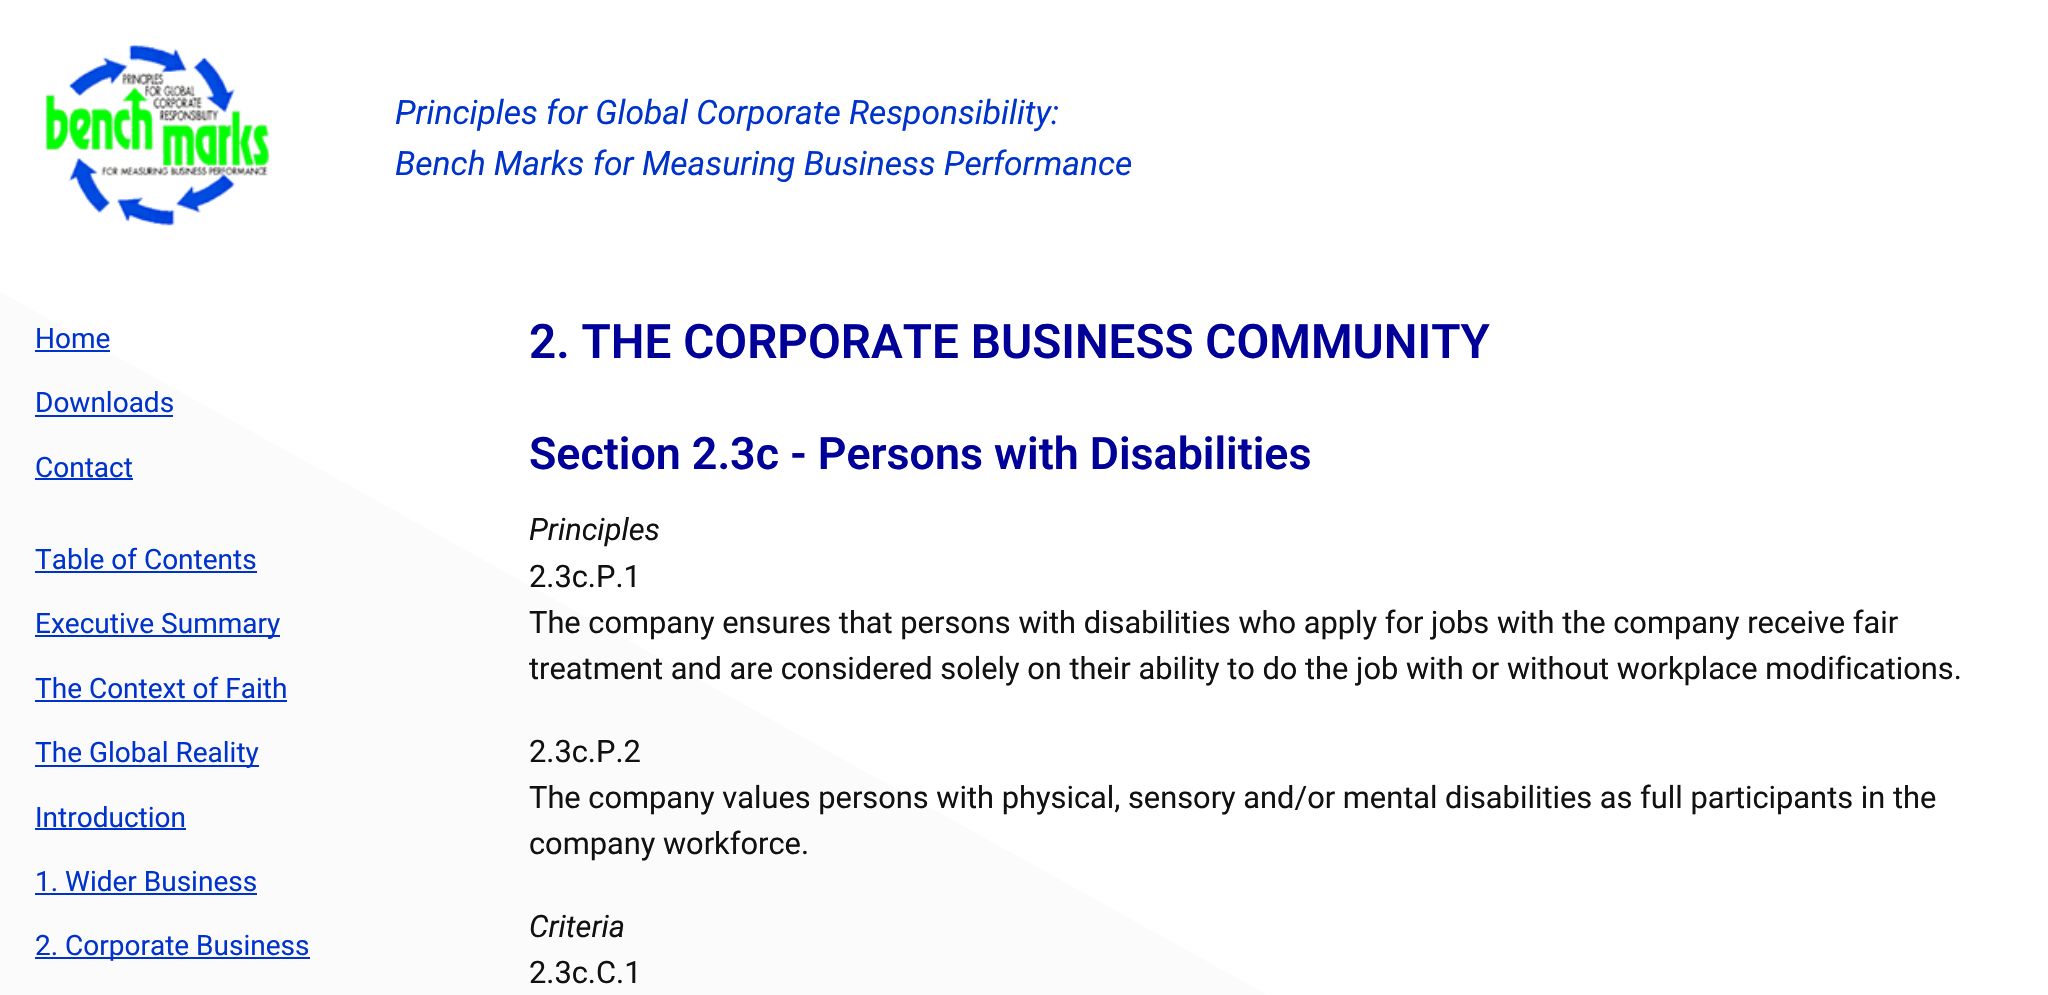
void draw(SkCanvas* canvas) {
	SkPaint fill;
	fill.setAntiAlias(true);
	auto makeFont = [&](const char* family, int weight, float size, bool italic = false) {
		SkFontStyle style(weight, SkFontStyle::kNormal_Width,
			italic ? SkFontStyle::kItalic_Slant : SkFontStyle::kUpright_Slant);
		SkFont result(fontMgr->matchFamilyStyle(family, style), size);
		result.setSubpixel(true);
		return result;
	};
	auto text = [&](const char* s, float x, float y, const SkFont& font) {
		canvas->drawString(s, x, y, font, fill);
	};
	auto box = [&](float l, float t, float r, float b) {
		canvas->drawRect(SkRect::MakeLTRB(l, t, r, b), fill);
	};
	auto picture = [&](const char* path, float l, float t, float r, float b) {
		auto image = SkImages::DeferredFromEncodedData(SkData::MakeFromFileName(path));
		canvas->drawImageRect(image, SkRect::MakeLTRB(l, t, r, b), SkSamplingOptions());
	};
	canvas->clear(0xFFFFFFFF);
	{
		const SkColor colors[] = {0xFFFBFBFB, 0xFFFBFBFB, 0xFFFFFFFF, 0xFFFFFFFF, 0xFFFFFFFF, 0xFFFFFFFF};
		const float stops[] = {0, 0.33f, 0.33f, 0.4f, 0.4f, 1};
		const SkPoint ends[] = {{573, 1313}, {1477, -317}};
		fill.setShader(SkGradientShader::MakeLinear(ends, colors, stops, 6, SkTileMode::kClamp));
		fill.setAlpha(255);
	}
	box(0, 292, 1267, 995);
	picture("image0.png", 44, 44, 271, 226);
	fill.setShader(nullptr);
	fill.setColor(0xFF0033CC);
	box(35, 350, 110, 352);
	box(35, 415, 173, 417);
	box(35, 478, 133, 480);
	box(35, 571, 257, 573);
	box(35, 635, 280, 637);
	box(35, 700, 287, 702);
	box(35, 765, 259, 767);
	box(35, 828, 186, 830);
	box(35, 893, 257, 895);
	box(35, 957, 310, 959);
	auto font1 = makeFont("Roboto", 400, 33.6f, true);
	text("Principles for Global Corporate Responsibility:", 395, 124, font1);
	text("Bench Marks for Measuring Business Performance", 395, 175, font1);
	auto font2 = makeFont("Roboto", 400, 28);
	text("Home", 35, 348, font2);
	text("Downloads", 35, 412, font2);
	text("Contact", 35, 477, font2);
	text("Table of Contents", 35, 569, font2);
	text("Executive Summary", 35, 633, font2);
	text("The Context of Faith", 35, 698, font2);
	text("The Global Reality", 35, 762, font2);
	text("Introduction", 35, 827, font2);
	text("1. Wider Business", 35, 891, font2);
	text("2. Corporate Business", 35, 955, font2);
	auto font3 = makeFont("Roboto", 600, 47.6f);
	fill.setColor(0xFF000099);
	text("2. THE CORPORATE BUSINESS COMMUNITY", 529, 358, font3);
	auto font4 = makeFont("Roboto", 600, 44.75f);
	text("Section 2.3c - Persons with Disabilities", 529, 469, font4);
	auto font5 = makeFont("Roboto", 400, 30.8f, true);
	fill.setColor(0xFF111111);
	text("Principles", 529, 540, font5);
	auto font6 = makeFont("Roboto", 400, 30.8f);
	text("2.3c.P.1", 529, 587, font6);
	text("The company ensures that persons with disabilities who apply for jobs with the company receive fair", 529, 633, font6);
	text("treatment and are considered solely on their ability to do the job with or without workplace modifications.", 529, 679, font6);
	text("2.3c.P.2", 529, 762, font6);
	text("The company values persons with physical, sensory and/or mental disabilities as full participants in the", 529, 808, font6);
	text("company workforce.", 529, 854, font6);
	text("Criteria", 529, 937, font5);
	text("2.3c.C.1", 529, 983, font6);
}
